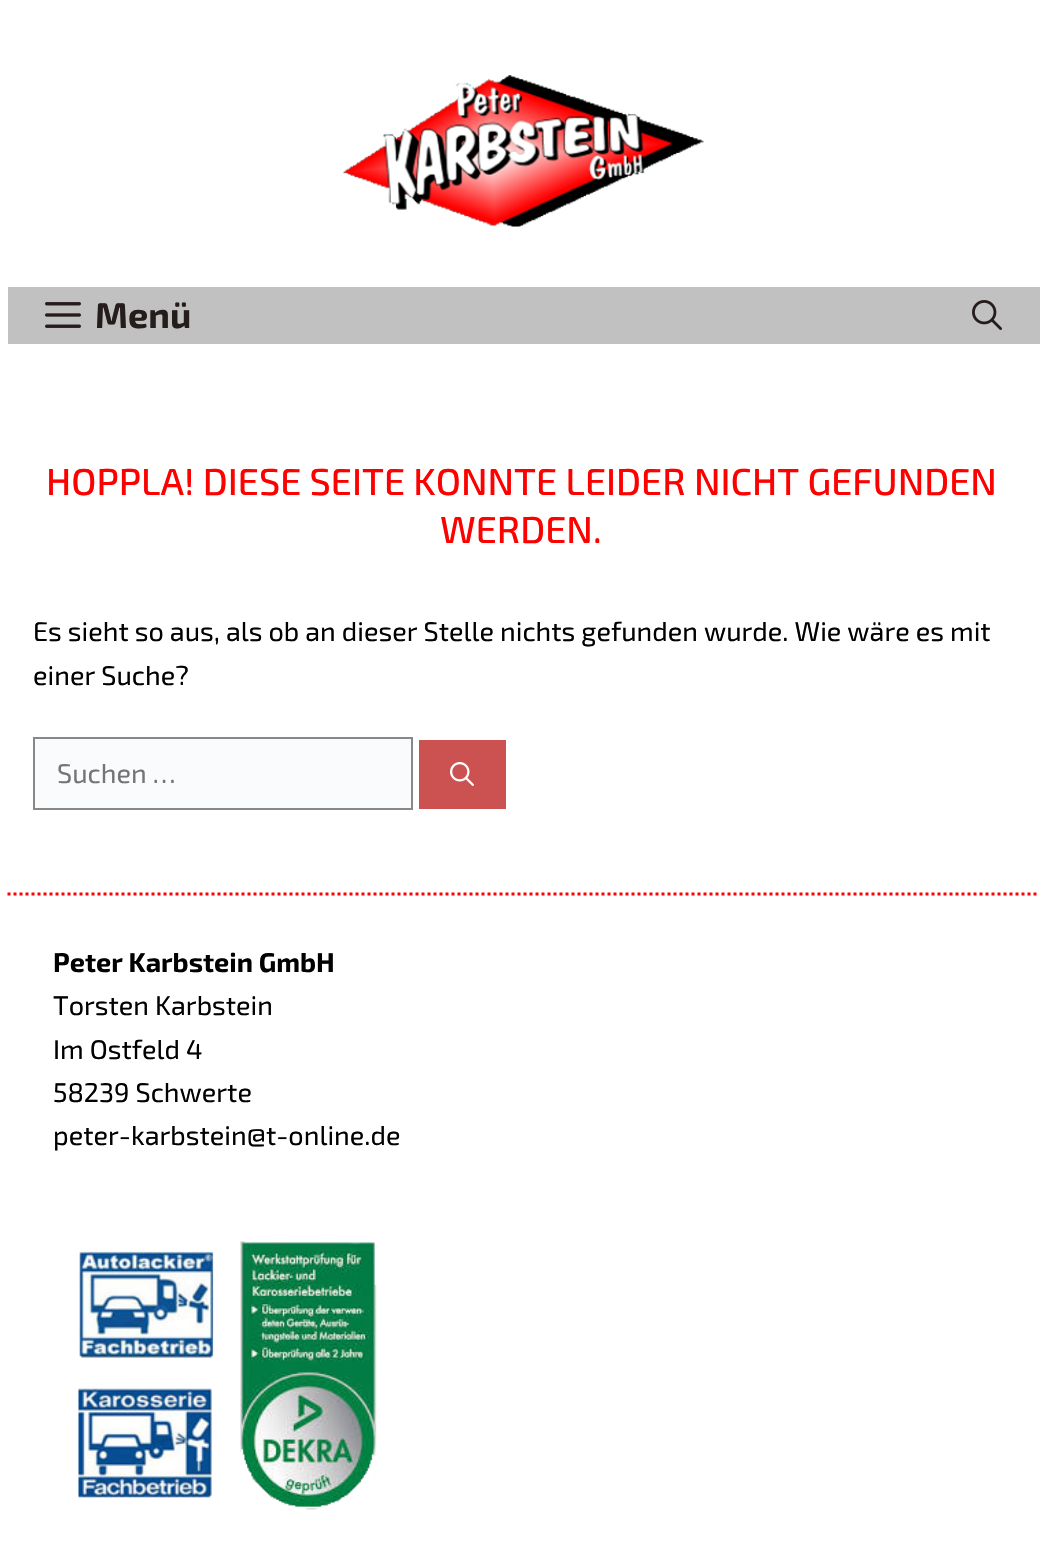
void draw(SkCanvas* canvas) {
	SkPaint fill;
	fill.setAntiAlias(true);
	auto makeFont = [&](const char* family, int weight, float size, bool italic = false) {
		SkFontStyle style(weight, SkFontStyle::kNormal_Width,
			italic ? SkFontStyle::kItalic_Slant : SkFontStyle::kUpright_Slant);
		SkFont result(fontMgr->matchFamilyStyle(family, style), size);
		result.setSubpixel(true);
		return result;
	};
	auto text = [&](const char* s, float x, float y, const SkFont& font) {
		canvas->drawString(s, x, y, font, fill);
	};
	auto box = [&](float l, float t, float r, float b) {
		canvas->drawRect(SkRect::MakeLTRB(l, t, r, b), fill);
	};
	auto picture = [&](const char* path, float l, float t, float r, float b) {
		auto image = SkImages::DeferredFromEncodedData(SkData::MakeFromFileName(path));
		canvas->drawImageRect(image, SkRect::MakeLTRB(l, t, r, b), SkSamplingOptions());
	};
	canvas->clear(0xFFFFFFFF);
	picture("image0.png", 343, 75, 704, 227);
	fill.setColor(0xFFC2C1C1);
	box(8, 287, 1040, 344);
	picture("image1.png", 45, 302, 81, 328);
	picture("image2.png", 972, 300, 1002, 330);
	fill.setColor(0xFFFAFBFC);
	canvas->drawRect(SkRect::MakeLTRB(34, 738, 412, 809), fill);
	fill.setStyle(SkPaint::kStroke_Style);
	fill.setStrokeWidth(2);
	fill.setColor(0xFF888888);
	canvas->drawRect(SkRect::MakeLTRB(34, 738, 412, 809), fill);
	fill.setStyle(SkPaint::kFill_Style);
	fill.setColor(0xFFCC5252);
	box(419, 740, 506, 809);
	picture("image3.png", 450, 762, 474, 786);
	fill.setStyle(SkPaint::kStroke_Style);
	fill.setStrokeWidth(3);
	fill.setColor(0xFFFF0000);
	fill.setPathEffect(SkDashPathEffect::Make({{3, 3}}, 0));
	canvas->drawPath(SkPathBuilder().moveTo(7.5f, 894).lineTo(1039.5f, 894).detach(), fill);
	fill.setPathEffect(nullptr);
	picture("image4.png", 78, 1241, 377, 1510);
	auto font1 = makeFont("Exo 2", 700, 36);
	fill.setStyle(SkPaint::kFill_Style);
	fill.setColor(0xFF251C1C);
	text("Menü", 95, 328, font1);
	auto font2 = makeFont("Exo 2", 500, 37.5f);
	fill.setColor(0xFFFF0000);
	text("HOPPLA! DIESE SEITE KONNTE LEIDER NICHT GEFUNDEN", 46, 495, font2);
	text("WERDEN.", 440, 543, font2);
	auto font3 = makeFont("Exo 2", 400, 27);
	fill.setColor(0xFF000000);
	text("Es sieht so aus, als ob an dieser Stelle nichts gefunden wurde. Wie wäre es mit", 33, 641, font3);
	text("einer Suche?", 33, 685, font3);
	fill.setColor(0xFF757575);
	text("Suchen …", 57, 783, font3);
	auto font4 = makeFont("Exo 2", 700, 27);
	fill.setColor(0xFF000000);
	text("Peter Karbstein GmbH", 53, 972, font4);
	text("Torsten Karbstein", 53, 1015, font3);
	text("Im Ostfeld 4", 53, 1059, font3);
	text("58239 Schwerte", 53, 1102, font3);
	text("peter-karbstein@t-online.de", 53, 1145, font3);
}
